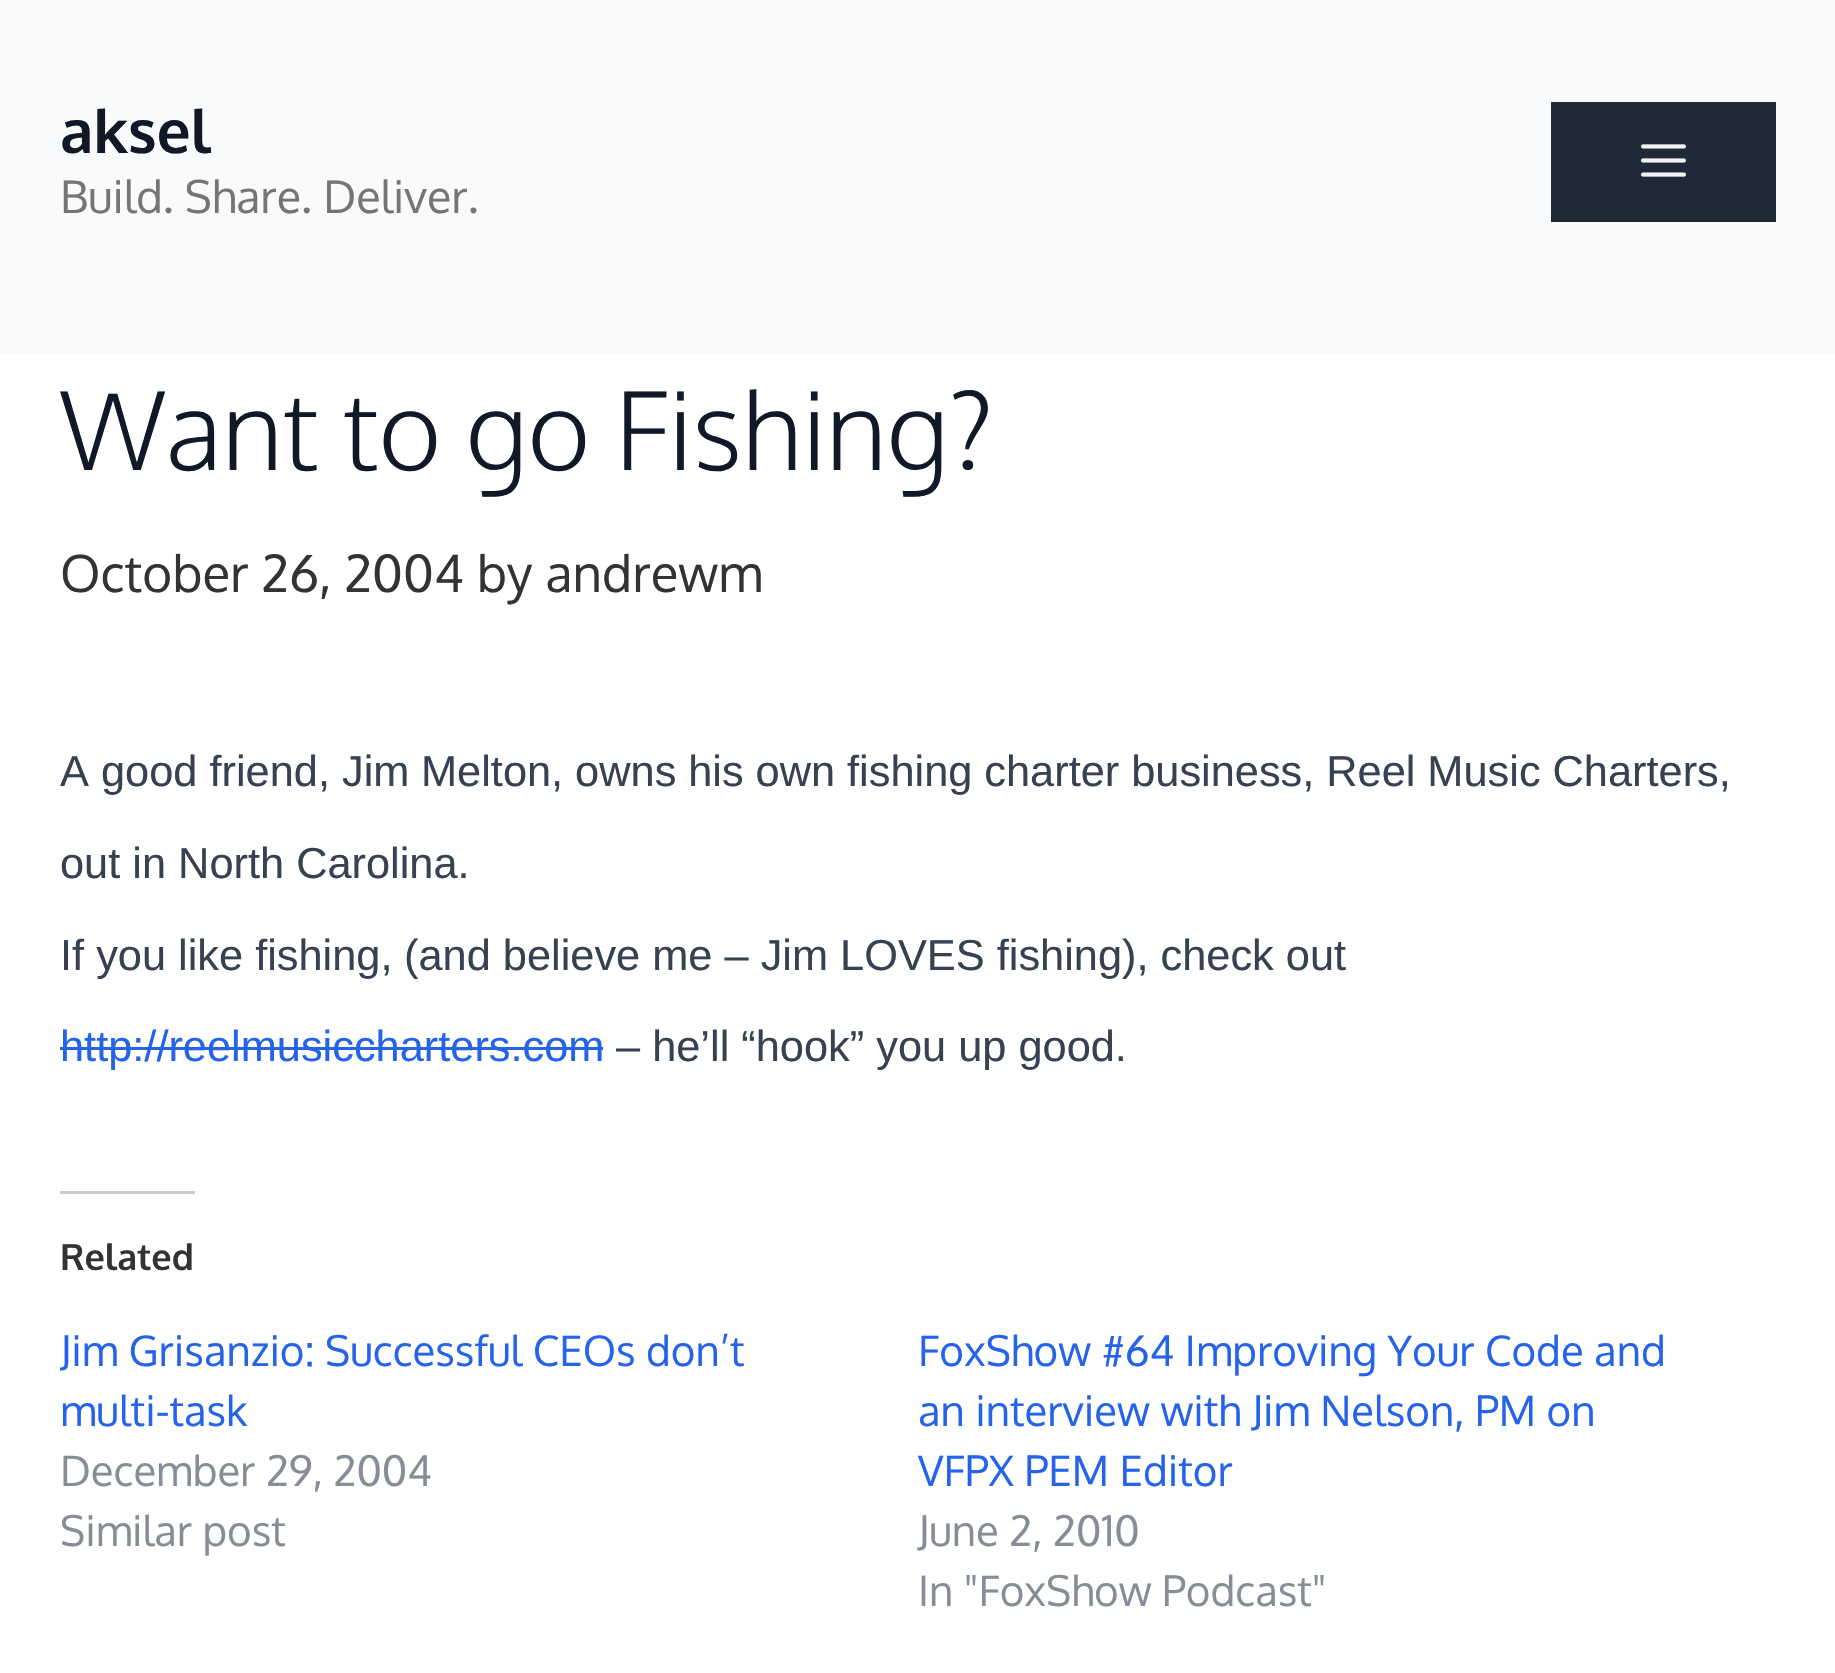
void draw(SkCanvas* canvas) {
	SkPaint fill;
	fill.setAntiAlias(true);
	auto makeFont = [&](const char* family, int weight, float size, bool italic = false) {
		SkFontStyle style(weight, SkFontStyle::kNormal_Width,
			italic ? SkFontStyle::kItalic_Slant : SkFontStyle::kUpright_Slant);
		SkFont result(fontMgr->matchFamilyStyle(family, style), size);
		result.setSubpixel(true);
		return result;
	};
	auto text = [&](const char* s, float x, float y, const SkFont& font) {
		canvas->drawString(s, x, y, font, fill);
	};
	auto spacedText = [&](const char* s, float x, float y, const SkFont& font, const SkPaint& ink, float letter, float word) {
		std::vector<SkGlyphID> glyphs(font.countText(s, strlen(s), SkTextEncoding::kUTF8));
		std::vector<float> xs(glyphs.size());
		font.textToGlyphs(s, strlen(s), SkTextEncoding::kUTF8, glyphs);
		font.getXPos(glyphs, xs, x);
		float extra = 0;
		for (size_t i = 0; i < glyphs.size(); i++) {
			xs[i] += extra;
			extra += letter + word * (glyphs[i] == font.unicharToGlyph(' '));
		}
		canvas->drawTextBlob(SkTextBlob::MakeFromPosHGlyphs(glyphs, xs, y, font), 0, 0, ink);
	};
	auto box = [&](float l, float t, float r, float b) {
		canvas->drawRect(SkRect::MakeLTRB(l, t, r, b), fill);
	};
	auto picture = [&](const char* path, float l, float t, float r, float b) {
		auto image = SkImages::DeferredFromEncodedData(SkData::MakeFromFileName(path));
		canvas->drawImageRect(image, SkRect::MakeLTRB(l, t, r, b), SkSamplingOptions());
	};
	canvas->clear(0xFFF9FAFB);
	fill.setColor(0xFF1F2937);
	box(1551, 102, 1776, 222);
	picture("image0.png", 1641, 144, 1686, 177);
	fill.setColor(0xFFFFFFFF);
	box(0, 354, 1835, 1673);
	fill.setColor(0xFF2563EB);
	box(60, 1047, 603, 1050);
	fill.setColor(0xFFCCCCCC);
	box(60, 1191, 195, 1194);
	auto font1 = makeFont("Oxygen", 700, 60);
	fill.setColor(0xFF111827);
	text("aksel", 60, 153, font1);
	auto font2 = makeFont("Oxygen", 400, 45);
	fill.setColor(0xFF757575);
	text("Build. Share. Deliver.", 60, 213, font2);
	auto font3 = makeFont("Oxygen", 300, 108);
	fill.setColor(0xFF111827);
	text("Want to go Fishing?", 60, 470, font3);
	auto font4 = makeFont("Oxygen", 400, 51);
	fill.setColor(0xFF333333);
	text("October 26, 2004 by andrewm", 60, 592, font4);
	auto font5 = makeFont("Liberation Sans", 400, 43.35f);
	fill.setColor(0xFF374151);
	text("A good friend, Jim", 60, 786, font5);
	spacedText("Melton, owns his own fishing charter business, Reel Music Charters,", 421, 786, font5, fill, 0, -0.1f);
	text("out in North Carolina.", 60, 878, font5);
	text("If you like fishing,", 60, 970, font5);
	text("(and believe me – Jim LOVES fishing), check out", 404, 970, font5);
	fill.setColor(0xFF2563EB);
	text("http://reelmusiccharters.com", 60, 1061, font5);
	fill.setColor(0xFF374151);
	text("– he’ll “hook” you up good.", 616, 1061, font5);
	auto font6 = makeFont("Oxygen", 700, 36);
	fill.setColor(0xFF333333);
	text("Related", 60, 1270, font6);
	canvas->save();
	canvas->clipRect(SkRect::MakeLTRB(60, 1320, 831, 1440));
	auto font7 = makeFont("Oxygen", 400, 42);
	fill.setColor(0xFF2563EB);
	text("Jim Grisanzio: Successful CEOs don’t", 60, 1366, font7);
	canvas->restore();
	text("multi-task", 60, 1426, font7);
	fill.setColor(0xFF878D97);
	text("December 29, 2004", 60, 1486, font7);
	text("Similar post", 60, 1546, font7);
	fill.setColor(0xFF2563EB);
	text("FoxShow #64 Improving Your Code and", 918, 1366, font7);
	text("an interview with Jim Nelson, PM on", 918, 1426, font7);
	text("VFPX PEM Editor", 918, 1486, font7);
	fill.setColor(0xFF878D97);
	text("June 2, 2010", 918, 1546, font7);
	text("In \"FoxShow Podcast\"", 918, 1606, font7);
}
